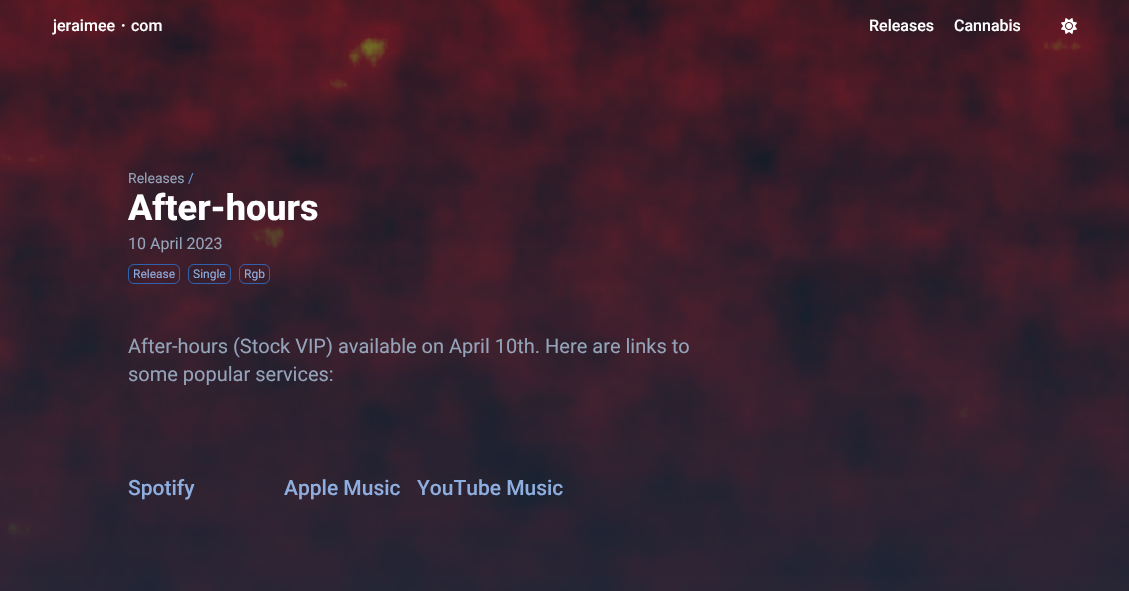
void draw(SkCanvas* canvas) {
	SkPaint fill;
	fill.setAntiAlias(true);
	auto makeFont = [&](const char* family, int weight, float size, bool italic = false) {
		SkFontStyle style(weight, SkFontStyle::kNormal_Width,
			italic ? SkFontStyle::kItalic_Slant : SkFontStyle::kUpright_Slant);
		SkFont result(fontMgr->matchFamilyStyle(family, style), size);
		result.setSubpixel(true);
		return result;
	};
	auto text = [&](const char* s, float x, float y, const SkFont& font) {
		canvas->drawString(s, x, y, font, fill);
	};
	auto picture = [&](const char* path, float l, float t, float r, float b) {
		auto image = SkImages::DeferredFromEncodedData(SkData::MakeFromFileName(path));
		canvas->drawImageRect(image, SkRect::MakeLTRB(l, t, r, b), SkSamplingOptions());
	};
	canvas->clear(0xFFFFFFFF);
	picture("image1.png", 0, 0, 1129, 591);
	picture("image0.png", 1061, 18, 1077, 34);
	fill.setStyle(SkPaint::kStroke_Style);
	fill.setStrokeWidth(1);
	fill.setColor(0xFF3061AF);
	canvas->drawRoundRect(SkRect::MakeLTRB(128.5f, 264.5f, 179.5f, 283.5f), 5.5f, 5.5f, fill);
	canvas->drawRoundRect(SkRect::MakeLTRB(188.5f, 264.5f, 230.5f, 283.5f), 5.5f, 5.5f, fill);
	canvas->drawRoundRect(SkRect::MakeLTRB(239.5f, 264.5f, 269.5f, 283.5f), 5.5f, 5.5f, fill);
	auto font1 = makeFont("Roboto", 500, 16);
	fill.setStyle(SkPaint::kFill_Style);
	fill.setColor(0xFFFFFFFF);
	text("jeraimee", 53, 31, font1);
	auto font2 = makeFont("WenQuanYi Zen Hei", 500, 16);
	text("・", 115, 31, font2);
	text("com", 131, 31, font1);
	text("Releases", 869, 31, font1);
	text("Cannabis", 954, 31, font1);
	auto font3 = makeFont("Roboto", 400, 14);
	fill.setColor(0xFF94A3B8);
	text("Releases", 128, 183, font3);
	fill.setColor(0xFF6590D5);
	text("/", 188, 183, font3);
	auto font4 = makeFont("Roboto", 800, 36);
	fill.setColor(0xFFFFFFFF);
	text("After-hours", 128, 220, font4);
	auto font5 = makeFont("Roboto", 400, 16);
	fill.setColor(0xFF94A3B8);
	text("10 April 2023", 128, 249, font5);
	auto font6 = makeFont("Roboto", 400, 12);
	fill.setColor(0xFF8FAEE0);
	text("Release", 133, 278, font6);
	text("Single", 193, 278, font6);
	text("Rgb", 244, 278, font6);
	auto font7 = makeFont("Roboto", 400, 20);
	fill.setColor(0xFF94A3B8);
	text("After-hours (Stock VIP) available on April 10th. Here are links to", 128, 353, font7);
	text("some popular services:", 128, 381, font7);
	auto font8 = makeFont("Roboto", 500, 21);
	fill.setColor(0xFF8FAEE0);
	text("Spotify", 128, 495, font8);
	text("Apple Music", 284, 495, font8);
	text("YouTube Music", 417, 495, font8);
}
